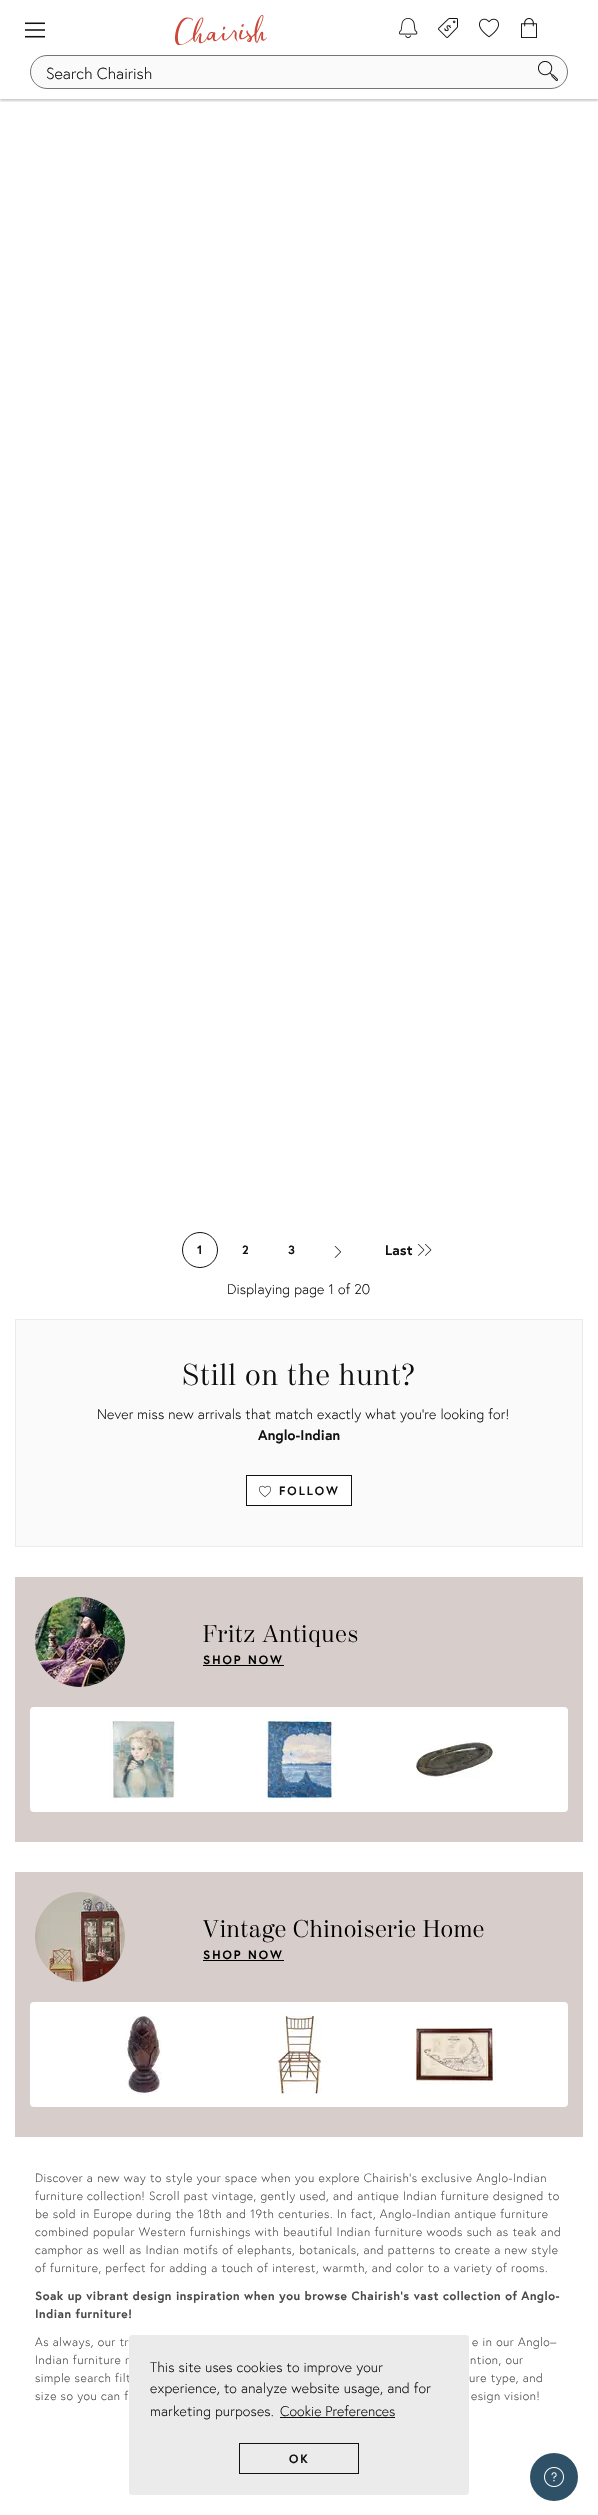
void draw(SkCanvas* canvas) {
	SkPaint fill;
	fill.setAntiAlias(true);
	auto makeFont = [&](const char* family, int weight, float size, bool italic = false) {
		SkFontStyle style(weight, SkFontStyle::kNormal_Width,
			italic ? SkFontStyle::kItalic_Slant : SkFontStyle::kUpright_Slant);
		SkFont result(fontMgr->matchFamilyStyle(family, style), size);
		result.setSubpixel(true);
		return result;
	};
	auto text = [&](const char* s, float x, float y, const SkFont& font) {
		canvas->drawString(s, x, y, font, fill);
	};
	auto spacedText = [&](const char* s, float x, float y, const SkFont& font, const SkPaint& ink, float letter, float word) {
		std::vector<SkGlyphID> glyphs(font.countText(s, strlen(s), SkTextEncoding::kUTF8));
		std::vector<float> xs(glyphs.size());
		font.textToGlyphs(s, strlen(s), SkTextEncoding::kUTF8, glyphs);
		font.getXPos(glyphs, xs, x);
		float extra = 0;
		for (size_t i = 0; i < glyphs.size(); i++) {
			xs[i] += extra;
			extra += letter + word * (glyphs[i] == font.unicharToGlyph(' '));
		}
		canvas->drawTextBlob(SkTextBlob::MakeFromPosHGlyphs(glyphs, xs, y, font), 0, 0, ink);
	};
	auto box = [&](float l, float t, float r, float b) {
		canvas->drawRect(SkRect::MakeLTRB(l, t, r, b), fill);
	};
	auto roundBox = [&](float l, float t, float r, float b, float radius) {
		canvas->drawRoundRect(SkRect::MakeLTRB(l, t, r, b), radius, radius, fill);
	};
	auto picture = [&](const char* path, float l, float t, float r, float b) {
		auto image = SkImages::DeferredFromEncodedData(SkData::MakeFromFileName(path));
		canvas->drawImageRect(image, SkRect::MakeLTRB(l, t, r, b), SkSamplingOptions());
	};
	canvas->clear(0xFFFFFFFF);
	picture("image0.png", 25, 22, 45, 38);
	picture("image1.png", 175, 15, 267, 45);
	picture("image2.png", 399, 18, 418, 38);
	picture("image3.png", 438, 18, 458, 38);
	picture("image4.png", 479, 18, 499, 38);
	picture("image5.png", 521, 18, 537, 38);
	canvas->save();
	canvas->clipRect(SkRect::MakeLTRB(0, 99, 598, 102));
	fill.setColor(0x33000000);
	fill.setMaskFilter(SkMaskFilter::MakeBlur(kNormal_SkBlurStyle, 1));
	canvas->drawRect(SkRect::MakeLTRB(0, 47, 598, 101), fill);
	fill.setMaskFilter(nullptr);
	canvas->restore();
	fill.setColor(0xFFFAFAFA);
	canvas->drawRoundRect(SkRect::MakeLTRB(30.5f, 55.5f, 567.5f, 88.5f), 16.5f, 16.5f, fill);
	fill.setStyle(SkPaint::kStroke_Style);
	fill.setStrokeWidth(1);
	fill.setColor(0xFF757575);
	canvas->drawRoundRect(SkRect::MakeLTRB(30.5f, 55.5f, 567.5f, 88.5f), 16.5f, 16.5f, fill);
	picture("image6.png", 538, 61, 558, 81);
	fill.setColor(0xFF111111);
	canvas->drawCircle(200, 1250, 17.5f, fill);
	picture("image7.png", 334, 1246, 342, 1258);
	picture("image8.png", 418, 1243, 425, 1256);
	picture("image8.png", 425, 1243, 432, 1256);
	fill.setStyle(SkPaint::kFill_Style);
	fill.setColor(0xFFFAFAFA);
	canvas->drawRect(SkRect::MakeLTRB(15.5f, 1319.5f, 582.5f, 1546.5f), fill);
	fill.setStyle(SkPaint::kStroke_Style);
	fill.setColor(0xFFEBEBEB);
	canvas->drawRect(SkRect::MakeLTRB(15.5f, 1319.5f, 582.5f, 1546.5f), fill);
	fill.setStyle(SkPaint::kFill_Style);
	fill.setColor(0xFFFFFFFF);
	canvas->drawRect(SkRect::MakeLTRB(246.5f, 1475.5f, 351.5f, 1505.5f), fill);
	fill.setStyle(SkPaint::kStroke_Style);
	fill.setColor(0xFF111111);
	canvas->drawRect(SkRect::MakeLTRB(246.5f, 1475.5f, 351.5f, 1505.5f), fill);
	picture("image9.png", 259, 1485, 271, 1497);
	fill.setStyle(SkPaint::kFill_Style);
	fill.setColor(0xFFD7CDCA);
	box(15, 1577, 583, 1842);
	picture("image10.png", 35, 1597, 125, 1687);
	fill.setColor(0xFF000000);
	box(203, 1665, 284, 1666);
	fill.setColor(0xFFFFFFFF);
	roundBox(30, 1707, 568, 1812, 4);
	picture("image11.png", 109, 1721, 177, 1801);
	picture("image12.png", 265, 1717, 337, 1801);
	picture("image13.png", 416, 1741, 496, 1778);
	fill.setColor(0xFFD7CDCA);
	box(15, 1872, 583, 2137);
	picture("image14.png", 35, 1892, 125, 1982);
	fill.setColor(0xFF000000);
	box(203, 1960, 284, 1961);
	fill.setColor(0xFFFFFFFF);
	roundBox(30, 2002, 568, 2107, 4);
	picture("image15.png", 125, 2016, 162, 2096);
	picture("image16.png", 277, 2012, 322, 2095);
	picture("image17.png", 414, 2025, 496, 2085);
	fill.setColor(0xFF2E5167);
	canvas->drawCircle(554, 2477, 24, fill);
	picture("image18.png", 544, 2467, 564, 2487);
	auto font1 = makeFont("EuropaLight", 300, 16);
	fill.setColor(0xFF111111);
	text("Search Chairish", 46, 79, font1);
	auto font2 = makeFont("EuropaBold", 700, 12);
	spacedText("1", 197, 1254, font2, fill, 0.15f, 0);
	spacedText("2", 242, 1254, font2, fill, 0.15f, 0);
	spacedText("3", 288, 1254, font2, fill, 0.15f, 0);
	auto font3 = makeFont("EuropaBold", 700, 14);
	spacedText("Last", 385, 1255, font3, fill, 0.15f, 0);
	auto font4 = makeFont("EuropaLight", 300, 14);
	spacedText("Displaying page 1 of 20", 227, 1294, font4, fill, 0.15f, 0);
	auto font5 = makeFont("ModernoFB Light", 300, 30);
	spacedText("Still on the hunt?", 182, 1385, font5, fill, 1.25f, 0);
	spacedText("Never miss new arrivals that match exactly what you're looking for!", 97, 1419, font4, fill, 0.15f, 0);
	spacedText("Anglo-Indian", 258, 1440, font3, fill, 0.15f, 0);
	spacedText("FOLLOW", 279, 1495, font2, fill, 2, 0);
	auto font6 = makeFont("ModernoFB Light", 300, 24);
	fill.setColor(0xFF000000);
	spacedText("Fritz Antiques", 203, 1642, font6, fill, 0.75f, 0);
	spacedText("SHOP NOW", 203, 1664, font2, fill, 2, 0);
	spacedText("Vintage Chinoiserie Home", 203, 1937, font6, fill, 0.75f, 0);
	spacedText("SHOP NOW", 203, 1959, font2, fill, 2, 0);
	auto font7 = makeFont("EuropaLight", 300, 12);
	fill.setColor(0xFF4A4A4A);
	spacedText("Discover a new way to style your space when you explore Chairish’s exclusive Anglo-Indian", 35, 2182, font7, fill, 0.5f, 0);
	spacedText("furniture collection! Scroll past vintage, gently used, and antique Indian furniture designed to", 35, 2200, font7, fill, 0.5f, 0);
	spacedText("be sold in Europe during the 18th and 19th centuries. In fact, Anglo-Indian antique furniture", 35, 2218, font7, fill, 0.5f, 0);
	spacedText("combined popular Western furnishings with beautiful Indian furniture woods such as teak and", 35, 2236, font7, fill, 0.5f, 0);
	spacedText("camphor as well as Indian motifs of elephants, botanicals, and patterns to create a new style", 35, 2254, font7, fill, 0.5f, 0);
	spacedText("of furniture, perfect for adding a touch of interest, warmth, and color to a variety of rooms.", 35, 2272, font7, fill, 0.5f, 0);
	spacedText("Soak up vibrant design inspiration when you browse Chairish’s vast collection of Anglo-", 35, 2300, font2, fill, 0.5f, 0);
	spacedText("Indian furniture!", 35, 2318, font2, fill, 0.5f, 0);
	spacedText("As always, our tr", 35, 2346, font7, fill, 0.5f, 0);
	spacedText("e in our Anglo–", 472, 2346, font7, fill, 0.5f, 0);
	spacedText("Indian furniture r", 35, 2364, font7, fill, 0.5f, 0);
	spacedText("ntion, our", 470, 2364, font7, fill, 0.5f, 0);
	spacedText("simple search filt", 35, 2382, font7, fill, 0.5f, 0);
	spacedText("ure type, and", 469, 2382, font7, fill, 0.5f, 0);
	spacedText("size so you can f", 35, 2400, font7, fill, 0.5f, 0);
	spacedText("esign vision!", 471, 2400, font7, fill, 0.5f, 0);
	fill.setColor(0xFFEBEBEB);
	canvas->drawRoundRect(SkRect::MakeLTRB(129.5f, 2335.5f, 468.5f, 2494.5f), 2.5f, 2.5f, fill);
	fill.setStyle(SkPaint::kStroke_Style);
	canvas->drawRoundRect(SkRect::MakeLTRB(129.5f, 2335.5f, 468.5f, 2494.5f), 2.5f, 2.5f, fill);
	fill.setStyle(SkPaint::kFill_Style);
	fill.setColor(0xFF111111);
	spacedText("This site uses cookies to improve your", 150, 2372, font4, fill, 0.15f, 0);
	spacedText("experience, to analyze website usage, and for", 150, 2393, font4, fill, 0.15f, 0);
	spacedText("marketing purposes.", 150, 2416, font4, fill, 0.15f, 0);
	text("Cookie Preferences", 280, 2416, font4);
	box(280, 2417, 395, 2418);
	fill.setStyle(SkPaint::kStroke_Style);
	canvas->drawRect(SkRect::MakeLTRB(239.5f, 2443.5f, 358.5f, 2473.5f), fill);
	fill.setStyle(SkPaint::kFill_Style);
	spacedText("OK", 289, 2463, font2, fill, 2, 0);
}
